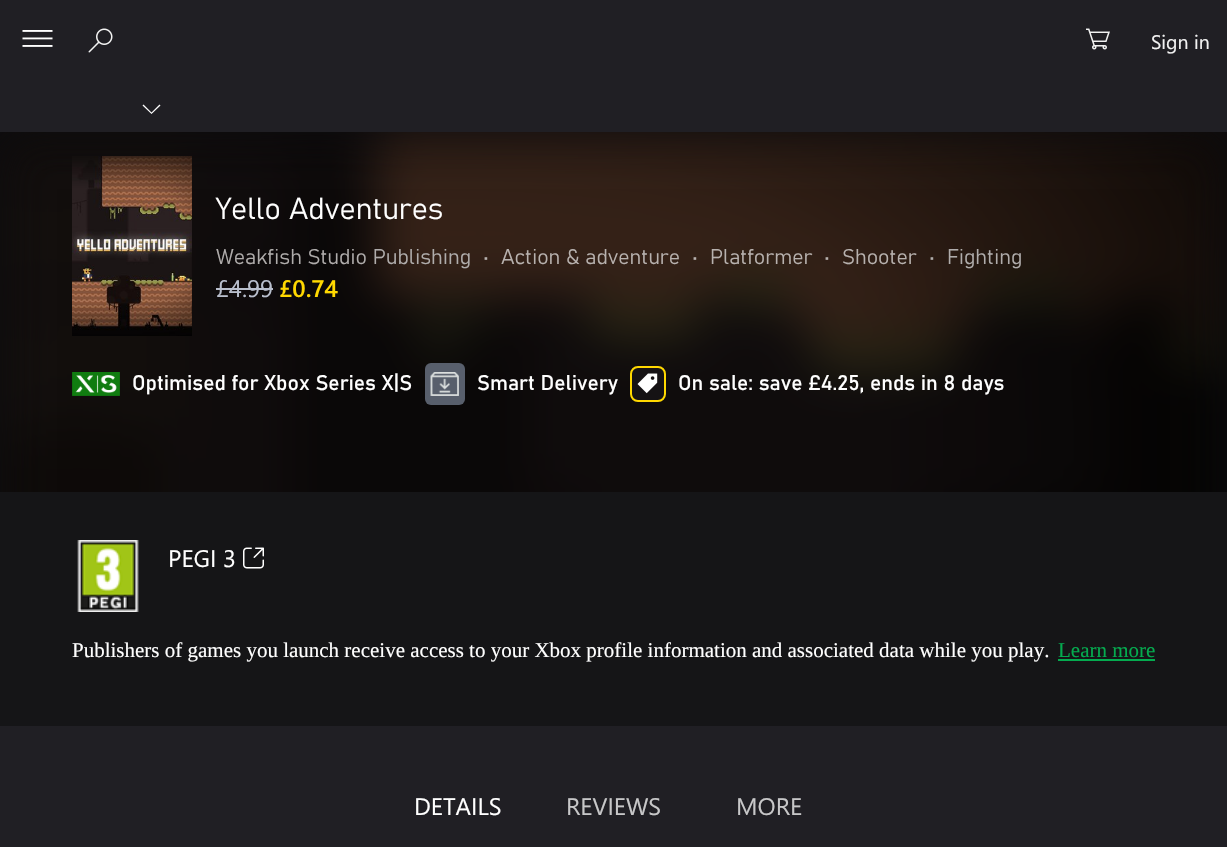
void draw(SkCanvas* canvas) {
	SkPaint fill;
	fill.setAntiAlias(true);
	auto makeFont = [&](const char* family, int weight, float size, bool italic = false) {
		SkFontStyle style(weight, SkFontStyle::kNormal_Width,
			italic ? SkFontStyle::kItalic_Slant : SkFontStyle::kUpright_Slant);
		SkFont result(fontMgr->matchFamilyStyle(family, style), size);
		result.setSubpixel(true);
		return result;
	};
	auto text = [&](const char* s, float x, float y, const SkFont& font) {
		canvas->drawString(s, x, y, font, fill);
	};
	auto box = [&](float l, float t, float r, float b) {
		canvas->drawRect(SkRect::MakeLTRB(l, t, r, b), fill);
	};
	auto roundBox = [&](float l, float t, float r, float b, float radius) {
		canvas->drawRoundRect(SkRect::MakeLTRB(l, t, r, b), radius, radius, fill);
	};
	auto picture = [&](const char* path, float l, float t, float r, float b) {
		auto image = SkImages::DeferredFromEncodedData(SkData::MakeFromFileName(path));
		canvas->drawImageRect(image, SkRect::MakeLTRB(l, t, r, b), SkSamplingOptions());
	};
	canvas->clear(0xFF201F24);
	fill.setColor(0xFF0C0B0D);
	box(0, 132, 1227, 492);
	picture("image0.png", 22, 30, 53, 47);
	picture("image1.png", 88, 28, 113, 53);
	picture("image2.png", 1086, 28, 1110, 50);
	fill.setColor(0xFFFFFFFF);
	canvas->drawPath(SkPathBuilder().moveTo(159.5f, 104.5f).lineTo(160.5f, 105.5f).lineTo(151.5f, 114).lineTo(142.5f, 105.5f).lineTo(143.5f, 104.5f).lineTo(151.5f, 112.5f).close().detach(), fill);
	picture("image3.png", 0, 132, 1227, 492);
	picture("image4.png", 72, 156, 192, 336);
	fill.setColor(0xFFB9BFCD);
	box(216, 288, 273, 290);
	picture("image5.png", 72, 372, 120, 396);
	fill.setColor(0xFF585F6C);
	roundBox(425, 363, 465, 405, 6);
	picture("image6.png", 430, 372, 459, 396);
	fill.setColor(0x4D201F24);
	canvas->drawRoundRect(SkRect::MakeLTRB(631, 367, 665, 401), 7, 7, fill);
	fill.setStyle(SkPaint::kStroke_Style);
	fill.setStrokeWidth(2);
	fill.setColor(0xFFFFD800);
	canvas->drawRoundRect(SkRect::MakeLTRB(631, 367, 665, 401), 7, 7, fill);
	picture("image7.png", 637, 373, 658, 394);
	fill.setStyle(SkPaint::kFill_Style);
	fill.setColor(0xFF151517);
	box(0, 492, 1227, 726);
	picture("image8.png", 77, 540, 139, 612);
	picture("image9.png", 243, 547, 264, 569);
	fill.setColor(0xFF04AB4F);
	box(1058, 659, 1155, 661);
	auto font1 = makeFont("Segoe UI", 400, 19.5f);
	fill.setColor(0xFFF2F2F2);
	text("Sign in", 1151, 49, font1);
	auto font2 = makeFont("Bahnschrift", 300, 30);
	fill.setColor(0xFFFFFFFF);
	text("Yello Adventures", 216, 219, font2);
	auto font3 = makeFont("Bahnschrift", 300, 21);
	fill.setColor(0xFFAFACAB);
	text("Weakfish Studio Publishing", 216, 264, font3);
	fill.setColor(0xFFB7B1AE);
	text("•", 483, 264, font3);
	text("Action & adventure", 501, 264, font3);
	text("•", 692, 264, font3);
	text("Platformer", 710, 264, font3);
	text("•", 824, 264, font3);
	text("Shooter", 842, 264, font3);
	fill.setColor(0xFFAFACAB);
	text("•", 929, 264, font3);
	text("Fighting", 947, 264, font3);
	auto font4 = makeFont("Segoe UI", 400, 24);
	fill.setColor(0xFFB9BFCD);
	text("£4.99", 216, 297, font4);
	auto font5 = makeFont("Segoe UI", 600, 24);
	fill.setColor(0xFFFFD800);
	text("£0.74", 279, 297, font5);
	auto font6 = makeFont("Bahnschrift", 400, 21);
	fill.setColor(0xFFFFFFFF);
	text("Optimised for Xbox Series X|S", 132, 390, font6);
	text("Smart Delivery", 477, 390, font6);
	text("On sale: save £4.25, ends in 8 days", 678, 390, font6);
	text("PEGI 3", 168, 567, font4);
	auto font7 = makeFont("Liberation Serif", 400, 21);
	text("Publishers of games you launch receive access to your Xbox profile information and associated data while you play.", 72, 657, font7);
	fill.setColor(0xFF04AB4F);
	text("Learn more", 1058, 657, font7);
	fill.setColor(0xFFFFFFFF);
	text("DETAILS", 414, 815, font4);
	fill.setColor(0xFFC7C7C8);
	text("REVIEWS", 566, 815, font4);
	text("MORE", 736, 815, font4);
}
